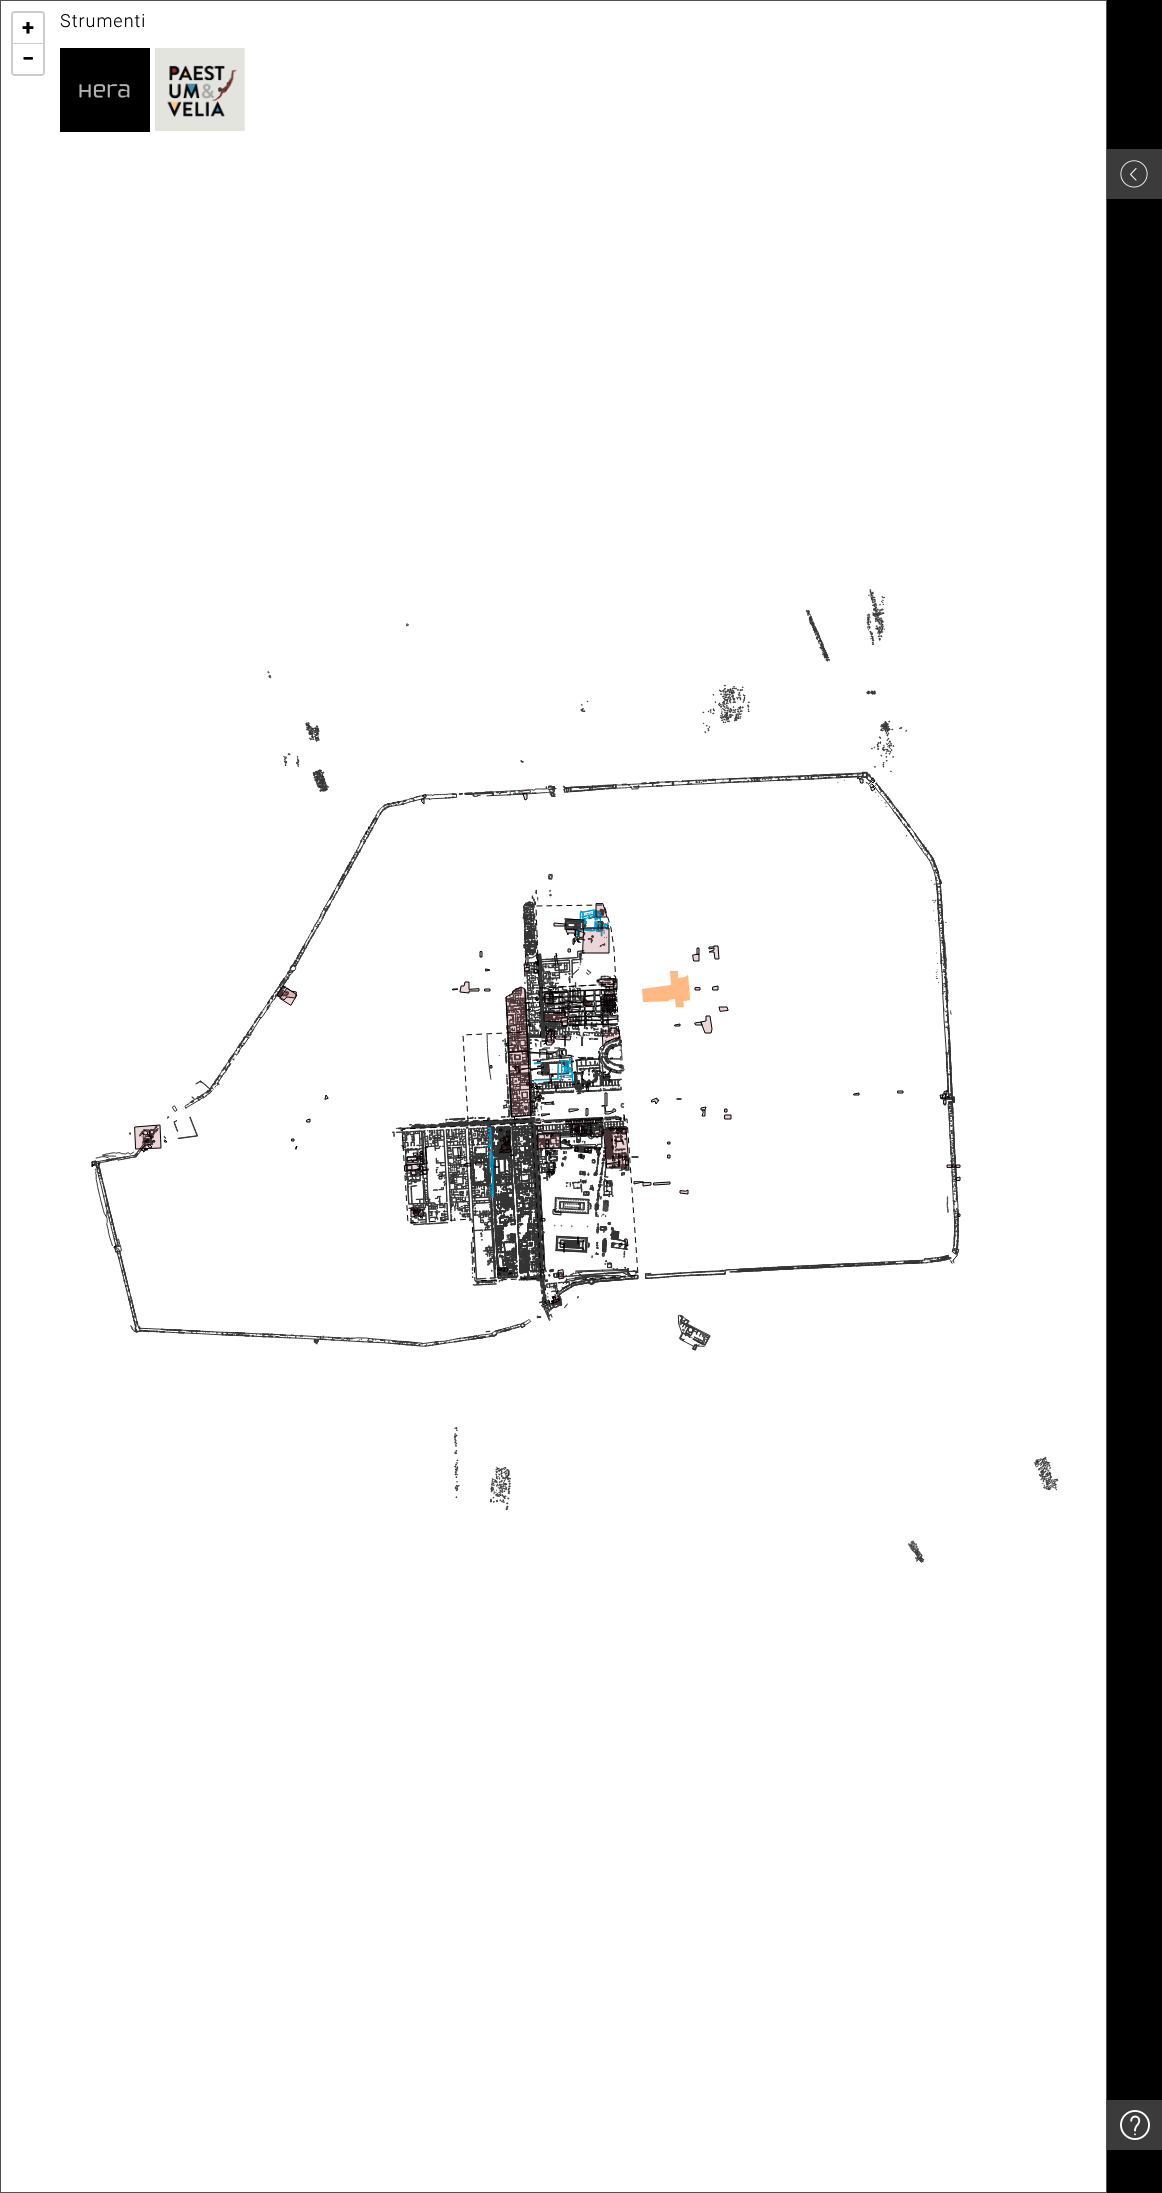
void draw(SkCanvas* canvas) {
	SkPaint fill;
	fill.setAntiAlias(true);
	auto makeFont = [&](const char* family, int weight, float size, bool italic = false) {
		SkFontStyle style(weight, SkFontStyle::kNormal_Width,
			italic ? SkFontStyle::kItalic_Slant : SkFontStyle::kUpright_Slant);
		SkFont result(fontMgr->matchFamilyStyle(family, style), size);
		result.setSubpixel(true);
		return result;
	};
	auto spacedText = [&](const char* s, float x, float y, const SkFont& font, const SkPaint& ink, float letter, float word) {
		std::vector<SkGlyphID> glyphs(font.countText(s, strlen(s), SkTextEncoding::kUTF8));
		std::vector<float> xs(glyphs.size());
		font.textToGlyphs(s, strlen(s), SkTextEncoding::kUTF8, glyphs);
		font.getXPos(glyphs, xs, x);
		float extra = 0;
		for (size_t i = 0; i < glyphs.size(); i++) {
			xs[i] += extra;
			extra += letter + word * (glyphs[i] == font.unicharToGlyph(' '));
		}
		canvas->drawTextBlob(SkTextBlob::MakeFromPosHGlyphs(glyphs, xs, y, font), 0, 0, ink);
	};
	auto box = [&](float l, float t, float r, float b) {
		canvas->drawRect(SkRect::MakeLTRB(l, t, r, b), fill);
	};
	auto picture = [&](const char* path, float l, float t, float r, float b) {
		auto image = SkImages::DeferredFromEncodedData(SkData::MakeFromFileName(path));
		canvas->drawImageRect(image, SkRect::MakeLTRB(l, t, r, b), SkSamplingOptions());
	};
	canvas->clear(0xFFFFFFFF);
	fill.setStyle(SkPaint::kStroke_Style);
	fill.setStrokeWidth(1);
	fill.setColor(0xFF525252);
	canvas->drawRect(SkRect::MakeLTRB(0.5f, 0.5f, 1106.5f, 2192.5f), fill);
	fill.setStrokeWidth(2);
	fill.setColor(0xFFCCCCCC);
	canvas->drawRoundRect(SkRect::MakeLTRB(12, 12, 44, 75), 3, 3, fill);
	fill.setStyle(SkPaint::kFill_Style);
	fill.setColor(0xFFFFFFFF);
	canvas->drawPath(SkPathBuilder().moveTo(15, 13).lineTo(41, 13).cubicTo(42, 13, 43, 14, 43, 15).lineTo(43, 44).lineTo(13, 44).lineTo(13, 15).cubicTo(13, 14, 14, 13, 15, 13).close().detach(), fill);
	fill.setColor(0xFFCCCCCC);
	box(13, 43, 43, 44);
	fill.setColor(0xFFFFFFFF);
	canvas->drawPath(SkPathBuilder().moveTo(13, 44).lineTo(43, 44).lineTo(43, 72).cubicTo(43, 73, 42, 74, 41, 74).lineTo(15, 74).cubicTo(14, 74, 13, 73, 13, 72).close().detach(), fill);
	picture("image0.png", 266, 671, 406, 830);
	picture("image1.png", 406, 623, 662, 804);
	picture("image2.png", 662, 589, 913, 830);
	picture("image3.png", 195, 830, 373, 1086);
	picture("image4.png", 486, 873, 625, 1086);
	picture("image5.png", 905, 830, 918, 845);
	picture("image6.png", 918, 837, 953, 1086);
	picture("image7.png", 91, 1129, 150, 1333);
	picture("image8.png", 150, 1086, 406, 1342);
	picture("image9.png", 406, 1086, 662, 1342);
	picture("image10.png", 662, 1259, 918, 1342);
	picture("image11.png", 918, 1086, 960, 1264);
	picture("image12.png", 314, 1342, 406, 1346);
	picture("image13.png", 406, 1342, 511, 1511);
	picture("image14.png", 684, 1342, 918, 1562);
	picture("image15.png", 918, 1456, 1059, 1563);
	picture("image16.png", 91, 777, 961, 1308);
	picture("image17.png", 60, 48, 150, 132);
	picture("image18.png", 155, 48, 245, 131);
	fill.setColor(0xFF000000);
	box(1107, 0, 1162, 2193);
	fill.setColor(0xFF3B3B3B);
	box(1107, 149, 1162, 199);
	picture("image19.png", 1120, 160, 1148, 188);
	box(1107, 2100, 1162, 2150);
	picture("image20.png", 1120, 2110, 1150, 2140);
	auto font1 = makeFont("Roboto", 300, 18);
	fill.setColor(0xFF000000);
	spacedText("Strumenti", 60, 27, font1, fill, 1, 0);
	auto font2 = makeFont("Roboto", 700, 22);
	spacedText("+", 22, 35, font2, fill, 1, 0);
	spacedText("−", 22, 66, font2, fill, 1, 0);
}
